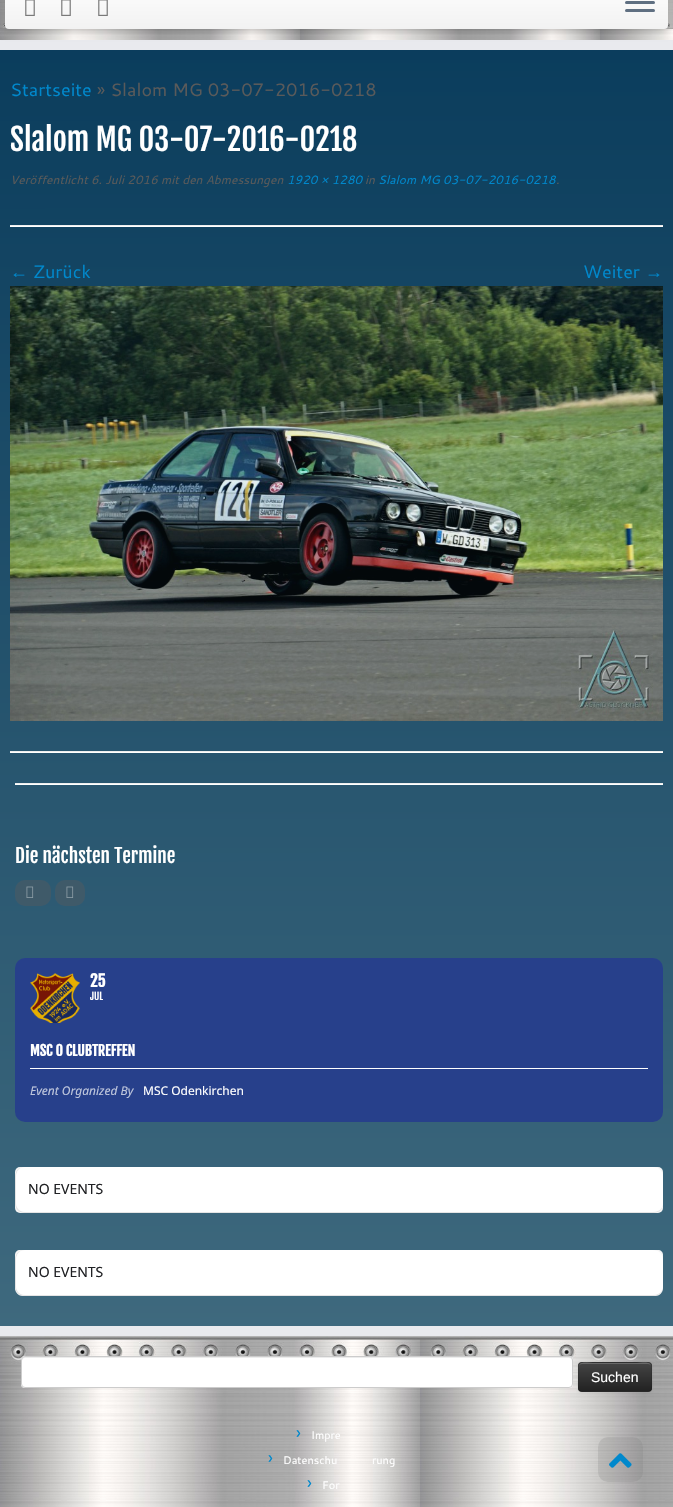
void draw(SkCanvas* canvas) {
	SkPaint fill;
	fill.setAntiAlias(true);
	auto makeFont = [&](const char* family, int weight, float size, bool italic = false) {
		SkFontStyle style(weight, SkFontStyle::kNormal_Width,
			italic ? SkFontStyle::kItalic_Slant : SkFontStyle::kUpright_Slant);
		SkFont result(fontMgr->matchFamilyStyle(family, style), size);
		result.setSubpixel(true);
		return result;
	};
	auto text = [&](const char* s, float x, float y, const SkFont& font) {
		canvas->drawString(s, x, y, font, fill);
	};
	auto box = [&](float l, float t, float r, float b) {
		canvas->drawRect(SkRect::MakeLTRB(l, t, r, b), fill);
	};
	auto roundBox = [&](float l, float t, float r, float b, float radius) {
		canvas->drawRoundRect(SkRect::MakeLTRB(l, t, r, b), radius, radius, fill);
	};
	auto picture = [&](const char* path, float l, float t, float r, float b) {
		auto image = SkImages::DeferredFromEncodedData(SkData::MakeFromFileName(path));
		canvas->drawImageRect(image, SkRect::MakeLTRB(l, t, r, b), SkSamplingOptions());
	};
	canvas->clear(0xFFFFFFFF);
	{
		const SkColor colors[] = {0xFF003456, 0xFF507889};
		const float stops[] = {0, 1};
		const SkPoint ends[] = {{336, -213}, {337, 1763}};
		fill.setShader(SkGradientShader::MakeLinear(ends, colors, stops, 2, SkTileMode::kClamp));
		fill.setAlpha(255);
	}
	box(0, 50, 673, 1326);
	picture("image0.png", 0, 38, 673, 40);
	fill.setShader(nullptr);
	fill.setColor(0xFFE9EAEE);
	box(0, 40, 673, 50);
	picture("image1.png", 0, 29, 673, 38);
	picture("image2.png", 0, 0, 673, 29);
	fill.setColor(0x40000000);
	fill.setMaskFilter(SkMaskFilter::MakeBlur(kNormal_SkBlurStyle, 5));
	canvas->drawRoundRect(SkRect::MakeLTRB(5, -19, 668, 31), 4, 4, fill);
	fill.setMaskFilter(nullptr);
	{
		const SkColor colors[] = {0xFFFFFFFF, 0xFFF2F2F2};
		const float stops[] = {0, 1};
		const SkPoint ends[] = {{337, -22}, {337, 29}};
		fill.setShader(SkGradientShader::MakeLinear(ends, colors, stops, 2, SkTileMode::kClamp));
		fill.setAlpha(255);
	}
	roundBox(5, -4, 668, 29, 4);
	picture("image3.png", 25, 0, 35, 16);
	picture("image3.png", 61, 0, 71, 16);
	picture("image3.png", 98, 0, 108, 16);
	fill.setShader(nullptr);
	fill.setColor(0xFF5F6F81);
	roundBox(625, 1, 655, 4, 1.5f);
	roundBox(625, 9, 655, 12, 1.5f);
	fill.setColor(0xFFEEEEEE);
	box(10, 225, 663, 226);
	fill.setColor(0xFFFFFFFF);
	box(10, 226, 663, 227);
	picture("image4.png", 10, 286, 663, 721);
	fill.setColor(0xFFEEEEEE);
	box(10, 751, 663, 752);
	fill.setColor(0xFFFFFFFF);
	box(10, 752, 663, 753);
	fill.setColor(0xFFEEEEEE);
	box(15, 783, 663, 784);
	fill.setColor(0xFFFFFFFF);
	box(15, 784, 663, 785);
	fill.setColor(0xFF3F5A69);
	roundBox(15, 880, 51, 906, 10);
	picture("image5.png", 26, 886, 34, 898);
	roundBox(55, 880, 85, 906, 10);
	picture("image5.png", 66, 886, 74, 898);
	fill.setColor(0xFF27408B);
	roundBox(15, 958, 663, 1122, 10);
	picture("image6.png", 30, 973, 80, 1023);
	fill.setColor(0xFFFFFFFF);
	box(30, 1068, 648, 1069);
	fill.setColor(0xFFF5F5F5);
	roundBox(15, 1167, 663, 1213, 5);
	fill.setColor(0xFFE5E5E5);
	canvas->drawPath(SkPathBuilder(SkPathFillType::kEvenOdd).moveTo(25, 1167).lineTo(653, 1167).cubicTo(659, 1167, 663, 1171, 663, 1177).lineTo(663, 1203).cubicTo(663, 1209, 659, 1213, 653, 1213).lineTo(25, 1213).cubicTo(19, 1213, 15, 1209, 15, 1203).lineTo(15, 1177).cubicTo(15, 1171, 19, 1167, 25, 1167).close().moveTo(25, 1167).lineTo(653, 1167).cubicTo(659, 1167, 663, 1171, 663, 1177).lineTo(663, 1203).cubicTo(663, 1208, 659, 1212, 653, 1212).lineTo(25, 1212).cubicTo(20, 1212, 16, 1208, 16, 1203).lineTo(16, 1177).cubicTo(16, 1171, 20, 1167, 25, 1167).close().detach(), fill);
	fill.setColor(0xFFFFFFFF);
	canvas->drawPath(SkPathBuilder().moveTo(25, 1167).cubicTo(20, 1167, 16, 1171, 16, 1177).lineTo(16, 1203).cubicTo(16, 1208, 20, 1212, 25, 1212).lineTo(653, 1212).cubicTo(659, 1212, 663, 1208, 663, 1203).lineTo(663, 1177).cubicTo(663, 1171, 659, 1167, 653, 1167).close().detach(), fill);
	fill.setColor(0xFFF5F5F5);
	canvas->drawPath(SkPathBuilder().moveTo(20, 1250).lineTo(658, 1250).cubicTo(661, 1250, 663, 1252, 663, 1255).lineTo(663, 1288).cubicTo(663, 1292.5f, 659.5f, 1296, 655, 1296).lineTo(23, 1296).cubicTo(18.5f, 1296, 15, 1292.5f, 15, 1288).lineTo(15, 1255).cubicTo(15, 1252, 17, 1250, 20, 1250).close().detach(), fill);
	fill.setColor(0xFFE5E5E5);
	canvas->drawPath(SkPathBuilder(SkPathFillType::kEvenOdd).moveTo(25, 1250).lineTo(653, 1250).cubicTo(659, 1250, 663, 1254, 663, 1260).lineTo(663, 1286).cubicTo(663, 1292, 659, 1296, 653, 1296).lineTo(25, 1296).cubicTo(19, 1296, 15, 1292, 15, 1286).lineTo(15, 1260).cubicTo(15, 1254, 19, 1250, 25, 1250).close().moveTo(25, 1250).lineTo(653, 1250).cubicTo(659, 1250, 663, 1254, 663, 1260).lineTo(663, 1286).cubicTo(663, 1291, 659, 1295, 653, 1295).lineTo(25, 1295).cubicTo(20, 1295, 16, 1291, 16, 1286).lineTo(16, 1260).cubicTo(16, 1254, 20, 1250, 25, 1250).close().detach(), fill);
	fill.setColor(0xFFFFFFFF);
	canvas->drawPath(SkPathBuilder().moveTo(25, 1250).cubicTo(20, 1250, 16, 1254, 16, 1260).lineTo(16, 1286).cubicTo(16, 1291, 20, 1295, 25, 1295).lineTo(653, 1295).cubicTo(659, 1295, 663, 1291, 663, 1286).lineTo(663, 1260).cubicTo(663, 1254, 659, 1250, 653, 1250).close().detach(), fill);
	picture("image7.png", 0, 1336, 673, 1507);
	fill.setColor(0xFFE9EAEE);
	box(0, 1326, 673, 1336);
	fill.setColor(0xFFFFFFFF);
	roundBox(21, 1356, 573, 1388, 4);
	fill.setColor(0xFFECECEC);
	canvas->drawPath(SkPathBuilder().moveTo(25, 1358).lineTo(569, 1358).cubicTo(571, 1358, 572, 1359, 572, 1361).lineTo(572, 1360).cubicTo(572, 1358, 571, 1357, 569, 1357).lineTo(25, 1357).cubicTo(23, 1357, 22, 1358, 22, 1360).lineTo(22, 1361).cubicTo(22, 1359, 23, 1358, 25, 1358).close().detach(), fill);
	fill.setStyle(SkPaint::kStroke_Style);
	fill.setStrokeWidth(1);
	fill.setColor(0xFFCCCCCC);
	canvas->drawRoundRect(SkRect::MakeLTRB(21.5f, 1356.5f, 572.5f, 1387.5f), 3.5f, 3.5f, fill);
	fill.setStyle(SkPaint::kFill_Style);
	fill.setColor(0x0D000000);
	fill.setMaskFilter(SkMaskFilter::MakeBlur(kNormal_SkBlurStyle, 1));
	canvas->drawRoundRect(SkRect::MakeLTRB(578, 1363, 652, 1393), 4, 4, fill);
	fill.setMaskFilter(nullptr);
	fill.setColor(0xFF363636);
	roundBox(578, 1362, 652, 1392, 4);
	canvas->save();
	canvas->clipPath(SkPathBuilder().moveTo(582, 1362).lineTo(648, 1362).cubicTo(650, 1362, 652, 1364, 652, 1366).lineTo(652, 1388).cubicTo(652, 1390, 650, 1392, 648, 1392).lineTo(582, 1392).cubicTo(580, 1392, 578, 1390, 578, 1388).lineTo(578, 1366).cubicTo(578, 1364, 580, 1362, 582, 1362).close().detach(), true);
	{
		const SkColor colors[] = {0xFF444444, 0xFF222222};
		const float stops[] = {0, 1};
		const SkPoint ends[] = {{615, 1363}, {615, 1391}};
		fill.setShader(SkGradientShader::MakeLinear(ends, colors, stops, 2, SkTileMode::kClamp));
		fill.setAlpha(255);
	}
	box(578, 1363, 652, 1391);
	canvas->restore();
	fill.setShader(nullptr);
	fill.setColor(0x33FFFFFF);
	canvas->drawPath(SkPathBuilder().moveTo(582, 1364).lineTo(648, 1364).cubicTo(650, 1364, 651, 1365, 651, 1367).cubicTo(651, 1360, 641, 1363, 637, 1363).lineTo(593, 1363).cubicTo(589, 1363, 579, 1360, 579, 1367).cubicTo(579, 1365, 580, 1364, 582, 1364).close().detach(), fill);
	fill.setStyle(SkPaint::kStroke_Style);
	fill.setColor(0x40000000);
	canvas->drawPath(SkPathBuilder().moveTo(650.5f, 1390.5f).lineTo(648.5f, 1391.5f).lineTo(581.5f, 1391.5f).lineTo(579.5f, 1390.5f).detach(), fill);
	fill.setColor(0x1A000000);
	canvas->drawPath(SkPathBuilder().moveTo(579.5f, 1390.5f).cubicTo(577.5f, 1388.5f, 578.5f, 1380, 578.5f, 1377).cubicTo(578.5f, 1360.5f, 576, 1362.5f, 593, 1362.5f).lineTo(637, 1362.5f).cubicTo(654, 1362.5f, 651.5f, 1360.5f, 651.5f, 1377).cubicTo(651.5f, 1380, 652.5f, 1388.5f, 650.5f, 1390.5f).detach(), fill);
	fill.setStyle(SkPaint::kFill_Style);
	fill.setColor(0x33777777);
	roundBox(598, 1437, 643, 1482, 10);
	picture("image8.png", 609, 1453, 632, 1468);
	auto font1 = makeFont("Cantarell", 400, 18);
	fill.setColor(0xFF0088CC);
	text("Startseite", 10, 96, font1);
	fill.setColor(0xFF5A5A5A);
	text("» Slalom MG 03-07-2016-0218", 97, 96, font1);
	auto font2 = makeFont("Fjalla One", 400, 30.4f);
	fill.setColor(0xFFFFFFFF);
	text("Slalom MG 03-07-2016-0218", 10, 151, font2);
	auto font3 = makeFont("Cantarell", 400, 12, true);
	fill.setColor(0xFF5A5A5A);
	text("Veröffentlicht 6. Juli 2016 mit den Abmessungen", 10, 184, font3);
	fill.setColor(0xFF0088CC);
	text("1920 × 1280", 287, 184, font3);
	fill.setColor(0xFF5A5A5A);
	text("in", 365, 184, font3);
	fill.setColor(0xFF0088CC);
	text("Slalom MG 03-07-2016-0218", 378, 184, font3);
	fill.setColor(0xFF5A5A5A);
	text(".", 556, 184, font3);
	auto font4 = makeFont("Liberation Serif", 400, 18);
	fill.setColor(0xFF0088CC);
	text("←", 10, 278, font4);
	text("Zurück", 33, 278, font1);
	text("Weiter", 583, 278, font1);
	text("→", 645, 278, font4);
	auto font5 = makeFont("Fjalla One", 400, 19.25f);
	fill.setColor(0xFFFFFFFF);
	text("Die nächsten Termine", 15, 863, font5);
	auto font6 = makeFont("Fjalla One", 700, 16);
	text("25", 90, 987, font6);
	auto font7 = makeFont("Fjalla One", 400, 10);
	text("JUL", 90, 1000, font7);
	auto font8 = makeFont("Fjalla One", 700, 14);
	text("MSC O CLUBTREFFEN", 30, 1056, font8);
	auto font9 = makeFont("Noto Sans", 400, 12, true);
	fill.setColor(0xFFBEC6DC);
	text("Event Organized By", 30, 1095, font9);
	auto font10 = makeFont("Noto Sans", 400, 12);
	fill.setColor(0xFFFFFFFF);
	text("MSC Odenkirchen", 143, 1095, font10);
	auto font11 = makeFont("Noto Sans", 400, 14);
	fill.setColor(0xFF202124);
	text("NO EVENTS", 28, 1194, font11);
	text("NO EVENTS", 28, 1277, font11);
	auto font12 = makeFont("Liberation Sans", 400, 14);
	fill.setColor(0xFFFFFFFF);
	text("Suchen", 591, 1382, font12);
	fill.setColor(0xFF0088CC);
	text("›", 296, 1439, font1);
	auto font13 = makeFont("Cantarell", 400, 11);
	fill.setColor(0xFFFFFFFF);
	text("Impre", 311, 1439, font13);
	fill.setColor(0xFF0088CC);
	text("›", 268, 1464, font1);
	fill.setColor(0xFFFFFFFF);
	text("Datenschu", 283, 1464, font13);
	text("rung", 372, 1464, font13);
	fill.setColor(0xFF0088CC);
	text("›", 307, 1489, font1);
	fill.setColor(0xFFFFFFFF);
	text("For", 322, 1489, font13);
}
